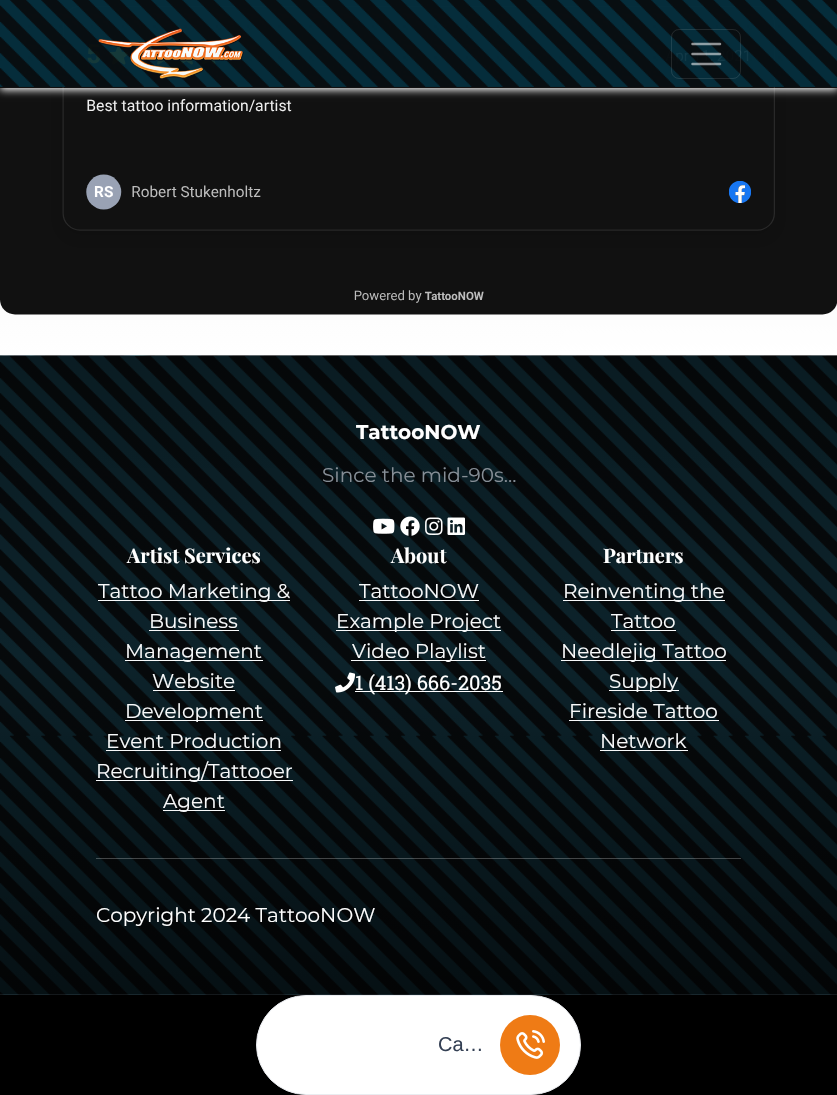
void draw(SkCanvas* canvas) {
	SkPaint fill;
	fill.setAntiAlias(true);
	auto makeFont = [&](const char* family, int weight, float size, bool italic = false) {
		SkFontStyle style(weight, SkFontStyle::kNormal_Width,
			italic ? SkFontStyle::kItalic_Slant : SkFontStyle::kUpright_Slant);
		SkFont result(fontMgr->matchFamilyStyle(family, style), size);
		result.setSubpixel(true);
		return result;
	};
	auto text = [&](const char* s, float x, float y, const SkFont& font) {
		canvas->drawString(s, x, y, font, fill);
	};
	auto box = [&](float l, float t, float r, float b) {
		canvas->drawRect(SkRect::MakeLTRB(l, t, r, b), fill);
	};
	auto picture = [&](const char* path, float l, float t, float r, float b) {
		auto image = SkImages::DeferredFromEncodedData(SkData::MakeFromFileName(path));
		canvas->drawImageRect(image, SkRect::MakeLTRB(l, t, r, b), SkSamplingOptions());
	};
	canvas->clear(0xFF000000);
	picture("image0.png", 0, 300, 837, 356);
	picture("image1.png", 0, 0, 837, 315);
	canvas->save();
	canvas->clipPath(SkPathBuilder(SkPathFillType::kEvenOdd).moveTo(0, 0).lineTo(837, 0).lineTo(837, 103).lineTo(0, 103).close().moveTo(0, 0).lineTo(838, 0).lineTo(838, 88).lineTo(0, 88).close().detach(), true);
	fill.setColor(0xFFFFFFFF);
	fill.setMaskFilter(SkMaskFilter::MakeBlur(kNormal_SkBlurStyle, 4));
	canvas->drawRect(SkRect::MakeLTRB(0, 3, 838, 90), fill);
	fill.setMaskFilter(nullptr);
	canvas->restore();
	picture("image2.png", 0, 0, 837, 87);
	picture("image3.png", 98, 28, 244, 79);
	fill.setStyle(SkPaint::kStroke_Style);
	fill.setStrokeWidth(1);
	fill.setColor(0x1AFFFFFF);
	canvas->drawRoundRect(SkRect::MakeLTRB(671.5f, 29.5f, 740.5f, 78.5f), 7.5f, 7.5f, fill);
	fill.setStrokeWidth(2.5f);
	fill.setStrokeCap(SkPaint::kRound_Cap);
	fill.setColor(0x8CFFFFFF);
	canvas->drawPath(SkPathBuilder().moveTo(692.5f, 44).lineTo(720, 44).moveTo(692.5f, 54).lineTo(720, 54).moveTo(692.5f, 64).lineTo(720, 64).detach(), fill);
	fill.setStyle(SkPaint::kFill_Style);
	fill.setColor(0xFF343A40);
	box(0, 994, 837, 995);
	picture("image4.png", 0, 355, 837, 995);
	picture("image5.png", 373, 518, 395, 534);
	picture("image6.png", 400, 516, 420, 536);
	picture("image7.png", 425, 517, 443, 535);
	picture("image8.png", 447, 517, 465, 535);
	fill.setColor(0xFFF8F9FA);
	box(98, 600, 290, 601);
	box(149, 630, 239, 631);
	box(125, 660, 263, 661);
	box(153, 690, 235, 691);
	box(125, 720, 263, 721);
	box(106, 750, 281, 751);
	box(96, 780, 293, 781);
	box(163, 810, 225, 811);
	box(359, 600, 479, 601);
	box(336, 630, 501, 631);
	box(351, 660, 486, 661);
	picture("image9.png", 335, 672, 355, 693);
	fill.setColor(0xFFFFFFFF);
	box(355, 691, 503, 692);
	fill.setColor(0xFFF8F9FA);
	box(563, 600, 725, 601);
	box(611, 630, 676, 631);
	box(561, 660, 726, 661);
	box(609, 690, 679, 691);
	box(569, 720, 719, 721);
	box(600, 750, 688, 751);
	fill.setColor(0x40FFFFFF);
	box(96, 858, 741, 859);
	fill.setColor(0xFFFFFFFF);
	canvas->drawRoundRect(SkRect::MakeLTRB(256.5f, 995.5f, 580.5f, 1094.5f), 49.5f, 49.5f, fill);
	fill.setStyle(SkPaint::kStroke_Style);
	fill.setStrokeWidth(1);
	fill.setStrokeCap(SkPaint::kButt_Cap);
	fill.setColor(0xFFEAECF0);
	canvas->drawRoundRect(SkRect::MakeLTRB(256.5f, 995.5f, 580.5f, 1094.5f), 49.5f, 49.5f, fill);
	fill.setStyle(SkPaint::kFill_Style);
	fill.setColor(0xFFEF7B15);
	canvas->drawCircle(530, 1045, 30, fill);
	picture("image10.png", 516, 1030, 545, 1059);
	auto font1 = makeFont("Montserrat", 700, 20);
	fill.setColor(0xFFFFFFFF);
	text("TattooNOW", 356, 439, font1);
	auto font2 = makeFont("Montserrat", 400, 20);
	fill.setColor(0xFF868E96);
	text("Since the mid-90s...", 322, 482, font2);
	auto font3 = makeFont("Playfair Display", 700, 20);
	fill.setColor(0xFFFFFFFF);
	text("Artist Services", 127, 563, font3);
	fill.setColor(0xFFF8F9FA);
	text("Tattoo Marketing &", 98, 598, font2);
	text("Business", 149, 628, font2);
	text("Management", 125, 658, font2);
	text("Website", 152, 688, font2);
	text("Development", 125, 718, font2);
	text("Event Production", 106, 748, font2);
	text("Recruiting/Tattooer", 96, 778, font2);
	text("Agent", 163, 808, font2);
	fill.setColor(0xFFFFFFFF);
	text("About", 391, 563, font3);
	fill.setColor(0xFFF8F9FA);
	text("TattooNOW", 359, 598, font2);
	text("Example Project", 336, 628, font2);
	text("Video Playlist", 352, 658, font2);
	auto font4 = makeFont("Roboto Slab", 400, 20);
	fill.setColor(0xFFFFFFFF);
	text("1 (413) 666-2035", 355, 690, font4);
	text("Partners", 603, 563, font3);
	fill.setColor(0xFFF8F9FA);
	text("Reinventing the", 563, 598, font2);
	text("Tattoo", 611, 628, font2);
	text("Needlejig Tattoo", 561, 658, font2);
	text("Supply", 609, 688, font2);
	text("Fireside Tattoo", 569, 718, font2);
	text("Network", 600, 748, font2);
	fill.setColor(0xFFFFFFFF);
	text("Copyright 2024 TattooNOW", 96, 922, font2);
	auto font5 = makeFont("Liberation Sans", 400, 20);
	fill.setColor(0xFF344054);
	text("Ca…", 438, 1051, font5);
}
